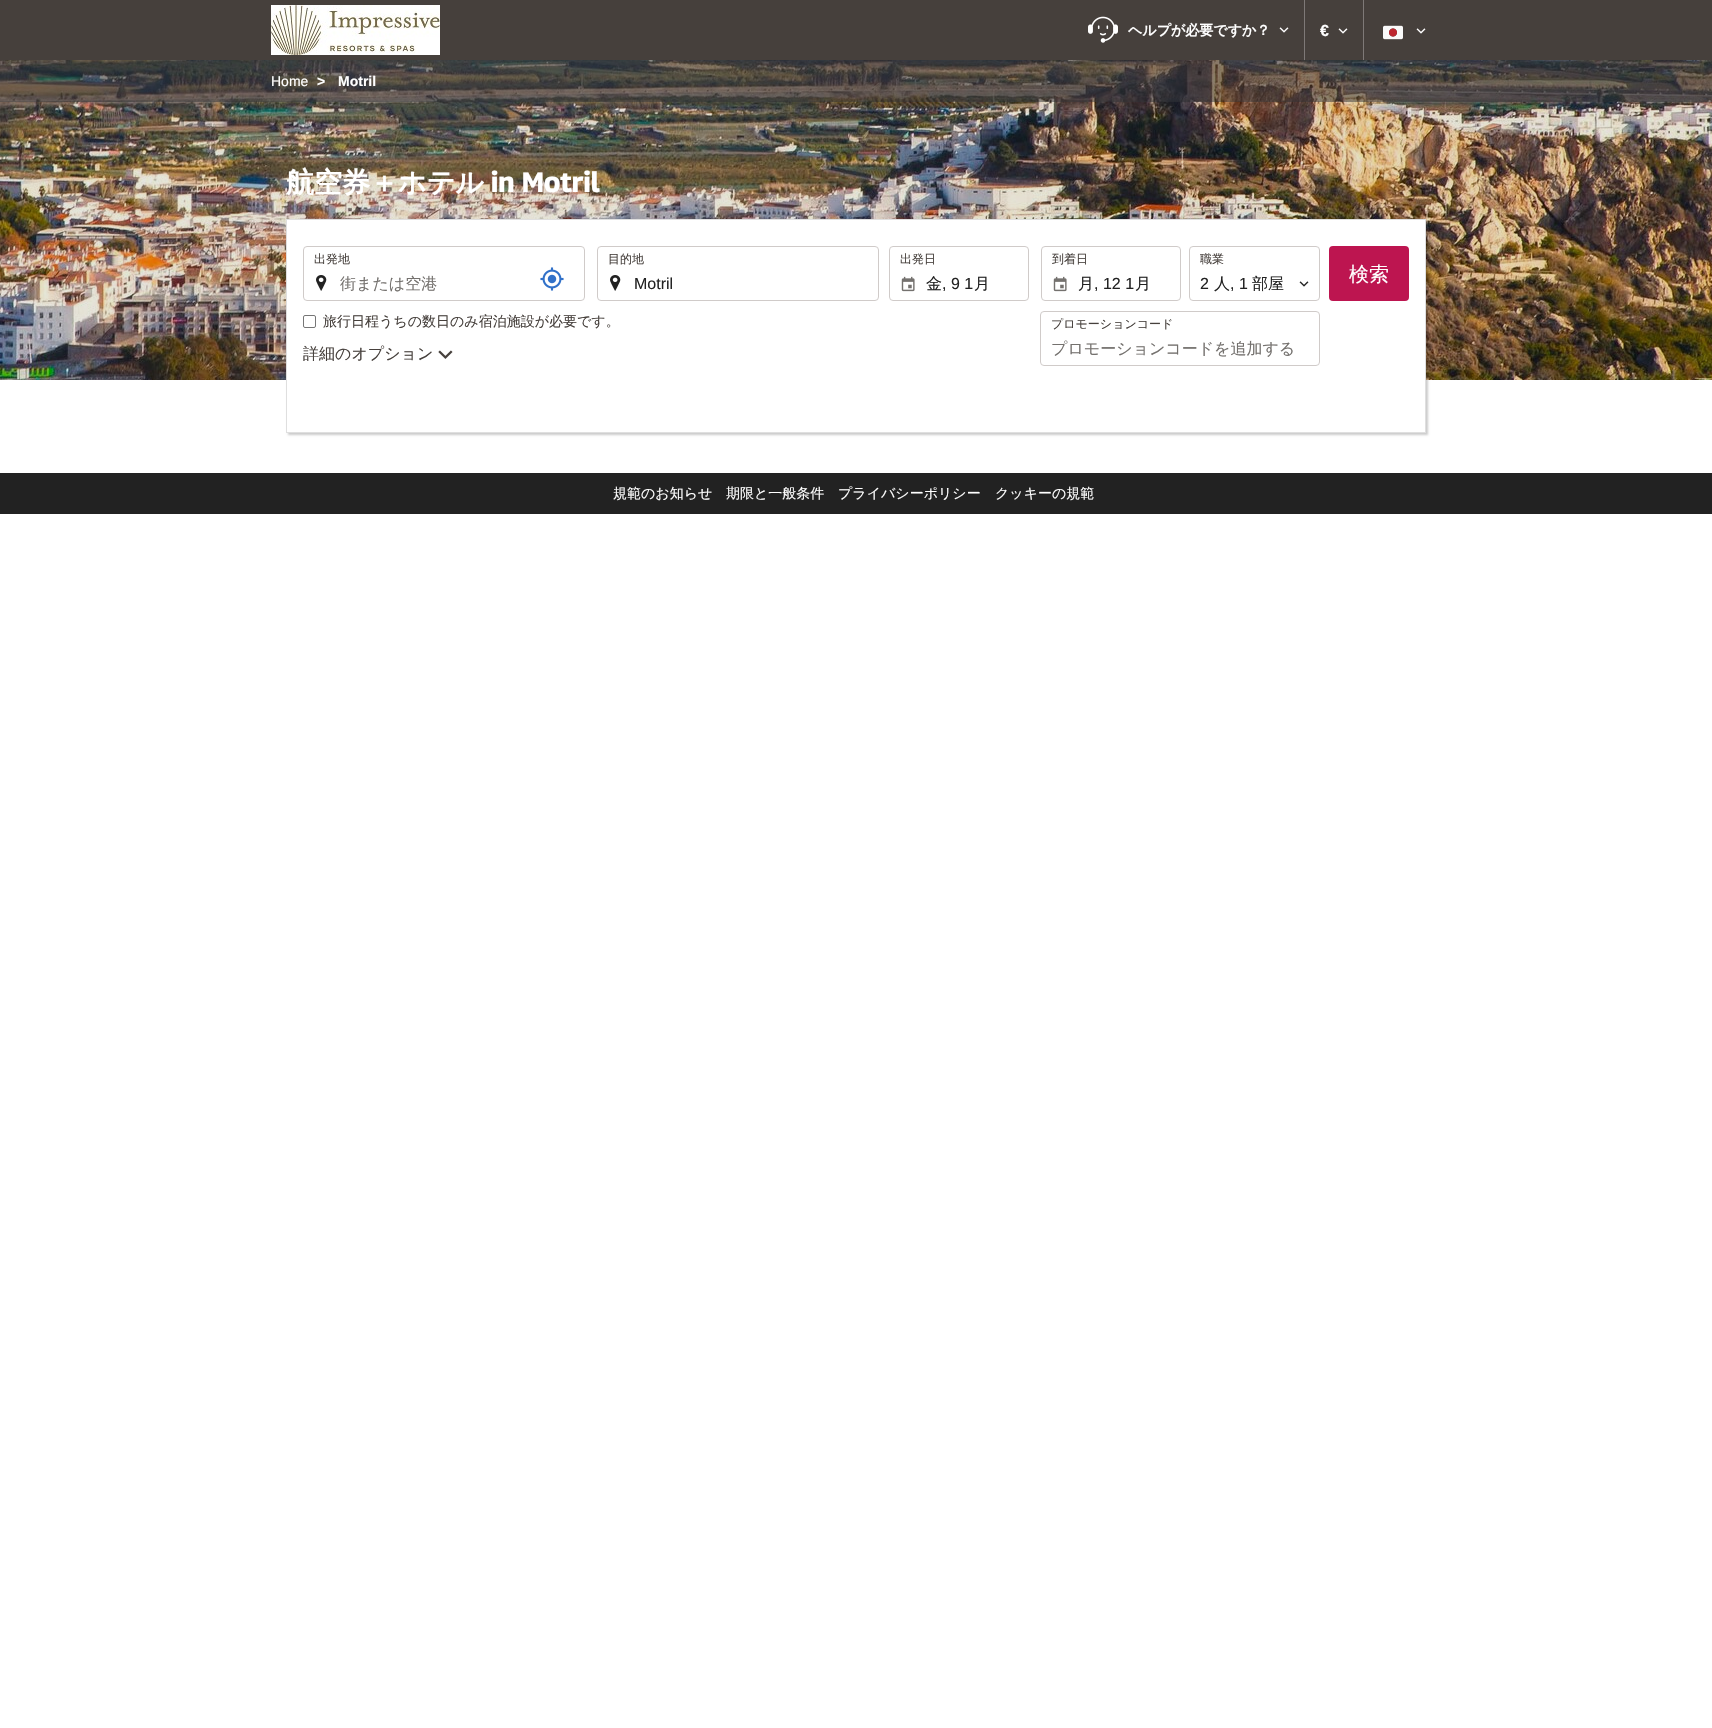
void draw(SkCanvas* canvas) {
	SkPaint fill;
	fill.setAntiAlias(true);
	auto makeFont = [&](const char* family, int weight, float size, bool italic = false) {
		SkFontStyle style(weight, SkFontStyle::kNormal_Width,
			italic ? SkFontStyle::kItalic_Slant : SkFontStyle::kUpright_Slant);
		SkFont result(fontMgr->matchFamilyStyle(family, style), size);
		result.setSubpixel(true);
		return result;
	};
	auto text = [&](const char* s, float x, float y, const SkFont& font) {
		canvas->drawString(s, x, y, font, fill);
	};
	auto box = [&](float l, float t, float r, float b) {
		canvas->drawRect(SkRect::MakeLTRB(l, t, r, b), fill);
	};
	auto roundBox = [&](float l, float t, float r, float b, float radius) {
		canvas->drawRoundRect(SkRect::MakeLTRB(l, t, r, b), radius, radius, fill);
	};
	auto picture = [&](const char* path, float l, float t, float r, float b) {
		auto image = SkImages::DeferredFromEncodedData(SkData::MakeFromFileName(path));
		canvas->drawImageRect(image, SkRect::MakeLTRB(l, t, r, b), SkSamplingOptions());
	};
	canvas->clear(0xFFFFFFFF);
	fill.setColor(0xFF46403C);
	box(0, 0, 1712, 60);
	picture("image0.png", 271, 5, 440, 55);
	fill.setColor(0xFF7E7977);
	box(1304, 0, 1305, 60);
	picture("image1.png", 1088, 16, 1118, 43);
	picture("image2.png", 1279, 27, 1289, 33);
	box(1363, 0, 1364, 60);
	picture("image2.png", 1338, 28, 1348, 34);
	picture("image3.png", 1383, 25, 1403, 40);
	picture("image2.png", 1416, 28, 1426, 34);
	picture("image4.png", 0, 60, 1712, 380);
	fill.setColor(0x80303235);
	box(0, 60, 1712, 102);
	fill.setColor(0x33000000);
	fill.setMaskFilter(SkMaskFilter::MakeBlur(kNormal_SkBlurStyle, 1));
	canvas->drawRect(SkRect::MakeLTRB(288, 221, 1428, 435), fill);
	fill.setMaskFilter(nullptr);
	fill.setColor(0xFFFFFFFF);
	canvas->drawRect(SkRect::MakeLTRB(286.5f, 219.5f, 1425.5f, 432.5f), fill);
	fill.setStyle(SkPaint::kStroke_Style);
	fill.setStrokeWidth(1);
	fill.setColor(0xFFDFDFDF);
	canvas->drawRect(SkRect::MakeLTRB(286.5f, 219.5f, 1425.5f, 432.5f), fill);
	picture("image5.png", 316, 275, 327, 291);
	fill.setColor(0xFFD0CBC9);
	canvas->drawRoundRect(SkRect::MakeLTRB(303.5f, 246.5f, 584.5f, 300.5f), 3.5f, 3.5f, fill);
	picture("image6.png", 540, 267, 564, 291);
	picture("image5.png", 610, 275, 621, 291);
	canvas->drawRoundRect(SkRect::MakeLTRB(597.5f, 246.5f, 878.5f, 300.5f), 3.5f, 3.5f, fill);
	picture("image7.png", 901, 276, 915, 292);
	canvas->drawRoundRect(SkRect::MakeLTRB(889.5f, 246.5f, 1028.5f, 300.5f), 3.5f, 3.5f, fill);
	picture("image7.png", 1053, 276, 1067, 292);
	canvas->drawRoundRect(SkRect::MakeLTRB(1041.5f, 246.5f, 1180.5f, 300.5f), 3.5f, 3.5f, fill);
	canvas->drawRoundRect(SkRect::MakeLTRB(1189.5f, 246.5f, 1319.5f, 300.5f), 3.5f, 3.5f, fill);
	picture("image8.png", 1299, 281, 1309, 287);
	canvas->drawRoundRect(SkRect::MakeLTRB(1040.5f, 311.5f, 1319.5f, 365.5f), 3.5f, 3.5f, fill);
	fill.setStyle(SkPaint::kFill_Style);
	fill.setColor(0xFFBD1550);
	roundBox(1329, 246, 1409, 301, 4);
	fill.setStyle(SkPaint::kStroke_Style);
	fill.setColor(0xFF767676);
	canvas->drawRoundRect(SkRect::MakeLTRB(303.5f, 315.5f, 315.5f, 327.5f), 1.5f, 1.5f, fill);
	picture("image9.png", 438, 350, 453, 359);
	fill.setStyle(SkPaint::kFill_Style);
	fill.setColor(0xFF222222);
	box(0, 473, 1712, 514);
	auto font1 = makeFont("WenQuanYi Zen Hei", 700, 14);
	fill.setColor(0xFFFFFFFF);
	text("ヘルプが必要ですか？", 1128, 35, font1);
	auto font2 = makeFont("Liberation Sans", 700, 16);
	text("€", 1320, 36, font2);
	auto font3 = makeFont("Liberation Sans", 400, 14);
	text("Home", 271, 86, font3);
	auto font4 = makeFont("Liberation Sans", 700, 14);
	text(">", 317, 86, font4);
	text("Motril", 338, 86, font4);
	auto font5 = makeFont("WenQuanYi Zen Hei", 700, 28);
	text("航空券＋ホテル", 286, 192, font5);
	auto font6 = makeFont("Georama", 700, 28);
	text("in Motril", 491, 192, font6);
	auto font7 = makeFont("WenQuanYi Zen Hei", 500, 12);
	fill.setColor(0xFF46403C);
	text("出発地", 314, 263, font7);
	auto font8 = makeFont("WenQuanYi Zen Hei", 500, 16);
	fill.setColor(0xFF74716E);
	text("街または空港", 340, 289, font8);
	fill.setColor(0xFF46403C);
	text("目的地", 608, 263, font7);
	auto font9 = makeFont("Liberation Sans", 400, 16);
	fill.setColor(0xFF222222);
	text("Motril", 634, 289, font9);
	fill.setColor(0xFF46403C);
	text("出発日", 900, 263, font7);
	fill.setColor(0xFF222222);
	text("金", 926, 289, font8);
	text(", 9 1", 942, 289, font9);
	text("月", 974, 289, font8);
	fill.setColor(0xFF46403C);
	text("到着日", 1052, 263, font7);
	fill.setColor(0xFF222222);
	text("月", 1078, 289, font8);
	text(", 12 1", 1094, 289, font9);
	text("月", 1135, 289, font8);
	fill.setColor(0xFF46403C);
	text("職業", 1200, 263, font7);
	fill.setColor(0xFF222222);
	text("2", 1200, 289, font9);
	text("人", 1214, 289, font8);
	text(", 1", 1230, 289, font9);
	text("部屋", 1252, 289, font8);
	fill.setColor(0xFF46403C);
	text("プロモーションコード", 1051, 328, font7);
	fill.setColor(0xFF74716E);
	text("プロモーションコードを追加する", 1051, 354, font8);
	auto font10 = makeFont("WenQuanYi Zen Hei", 500, 20);
	fill.setColor(0xFFFFFFFF);
	text("検索", 1349, 281, font10);
	auto font11 = makeFont("WenQuanYi Zen Hei", 500, 14);
	fill.setColor(0xFF46403C);
	text("旅行日程うちの数日のみ宿泊施設が必要です。", 323, 326, font11);
	text("詳細のオプション", 303, 359, font8);
	fill.setColor(0xFFFFFFFF);
	text("規範のお知らせ", 613, 498, font11);
	text("期限と一般条件", 726, 498, font11);
	text("プライバシーポリシー", 838, 498, font11);
	text("クッキーの規範", 995, 498, font11);
}
